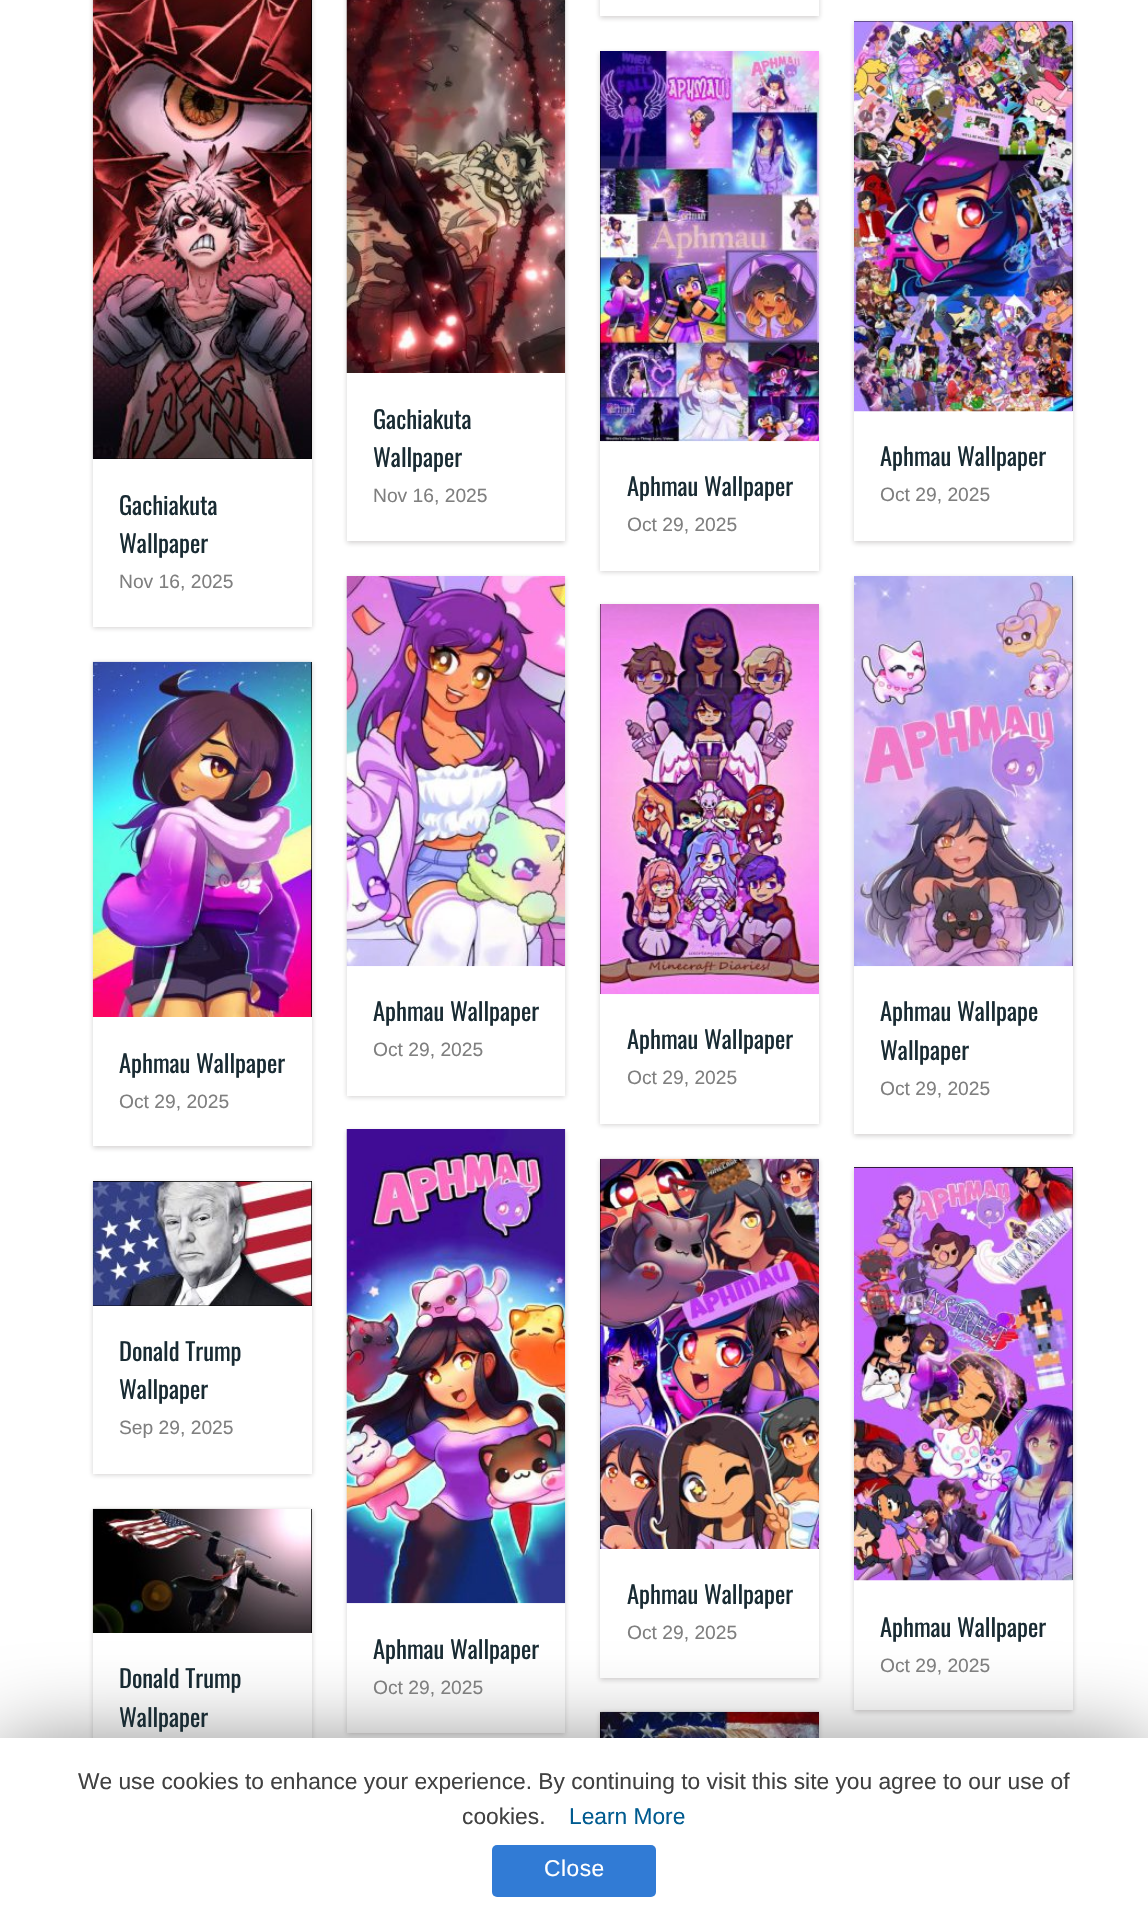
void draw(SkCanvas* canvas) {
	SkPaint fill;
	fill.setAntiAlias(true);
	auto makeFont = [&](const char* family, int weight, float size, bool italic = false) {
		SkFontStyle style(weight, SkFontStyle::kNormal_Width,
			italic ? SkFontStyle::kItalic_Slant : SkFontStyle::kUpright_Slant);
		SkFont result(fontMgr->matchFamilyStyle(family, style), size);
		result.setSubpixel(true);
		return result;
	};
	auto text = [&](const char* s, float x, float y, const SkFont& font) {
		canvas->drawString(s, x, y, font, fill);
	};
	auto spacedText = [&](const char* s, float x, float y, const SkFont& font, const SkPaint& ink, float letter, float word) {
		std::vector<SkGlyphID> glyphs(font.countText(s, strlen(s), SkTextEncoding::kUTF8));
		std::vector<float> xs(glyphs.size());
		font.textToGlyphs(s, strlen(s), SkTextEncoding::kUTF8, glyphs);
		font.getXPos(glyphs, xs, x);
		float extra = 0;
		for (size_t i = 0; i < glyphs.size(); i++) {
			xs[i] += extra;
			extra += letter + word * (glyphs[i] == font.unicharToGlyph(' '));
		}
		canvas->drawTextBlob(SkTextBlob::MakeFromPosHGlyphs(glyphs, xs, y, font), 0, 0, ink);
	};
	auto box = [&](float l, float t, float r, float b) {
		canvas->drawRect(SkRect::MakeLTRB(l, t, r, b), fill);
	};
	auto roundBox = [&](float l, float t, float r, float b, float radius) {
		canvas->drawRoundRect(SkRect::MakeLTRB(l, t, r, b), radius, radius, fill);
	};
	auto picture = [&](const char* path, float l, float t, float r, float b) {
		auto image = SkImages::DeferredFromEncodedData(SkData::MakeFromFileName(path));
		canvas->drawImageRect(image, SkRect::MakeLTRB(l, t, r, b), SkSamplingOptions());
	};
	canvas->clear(0xFFFFFFFF);
	fill.setColor(0x33221919);
	fill.setMaskFilter(SkMaskFilter::MakeBlur(kNormal_SkBlurStyle, 2.5f));
	canvas->drawRect(SkRect::MakeLTRB(600, -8, 819, 18), fill);
	fill.setMaskFilter(nullptr);
	fill.setColor(0xFFFFFFFF);
	box(600, 0, 819, 16);
	fill.setColor(0x33221919);
	fill.setMaskFilter(SkMaskFilter::MakeBlur(kNormal_SkBlurStyle, 2.5f));
	canvas->drawRect(SkRect::MakeLTRB(93, -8, 312, 628), fill);
	fill.setMaskFilter(nullptr);
	fill.setColor(0xFFFFFFFF);
	box(93, 459, 312, 627);
	fill.setColor(0xFF000000);
	box(93, 0, 312, 459);
	picture("image0.png", 92, 0, 312, 459);
	fill.setColor(0x33221919);
	fill.setMaskFilter(SkMaskFilter::MakeBlur(kNormal_SkBlurStyle, 2.5f));
	canvas->drawRect(SkRect::MakeLTRB(347, -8, 565, 543), fill);
	fill.setMaskFilter(nullptr);
	fill.setColor(0xFFFFFFFF);
	box(347, 373, 565, 541);
	picture("image1.png", 346, 0, 566, 373);
	fill.setColor(0x33221919);
	fill.setMaskFilter(SkMaskFilter::MakeBlur(kNormal_SkBlurStyle, 2.5f));
	canvas->drawRect(SkRect::MakeLTRB(600, 53, 819, 572), fill);
	fill.setMaskFilter(nullptr);
	fill.setColor(0xFFFFFFFF);
	box(600, 441, 819, 571);
	fill.setColor(0xFF000000);
	box(600, 51, 601, 441);
	picture("image2.png", 600, 51, 819, 442);
	fill.setColor(0x33221919);
	fill.setMaskFilter(SkMaskFilter::MakeBlur(kNormal_SkBlurStyle, 2.5f));
	canvas->drawRect(SkRect::MakeLTRB(854, 23, 1073, 543), fill);
	fill.setMaskFilter(nullptr);
	fill.setColor(0xFFFFFFFF);
	box(854, 411, 1073, 541);
	fill.setColor(0xFF000000);
	box(854, 21, 1073, 411);
	picture("image3.png", 854, 21, 1073, 412);
	fill.setColor(0x33221919);
	fill.setMaskFilter(SkMaskFilter::MakeBlur(kNormal_SkBlurStyle, 2.5f));
	canvas->drawRect(SkRect::MakeLTRB(93, 663, 312, 1148), fill);
	fill.setMaskFilter(nullptr);
	fill.setColor(0xFFFFFFFF);
	box(93, 1017, 312, 1146);
	fill.setColor(0xFF000000);
	box(311, 662, 312, 1017);
	picture("image4.png", 92, 661, 312, 1017);
	fill.setColor(0x33221919);
	fill.setMaskFilter(SkMaskFilter::MakeBlur(kNormal_SkBlurStyle, 2.5f));
	canvas->drawRect(SkRect::MakeLTRB(347, 578, 565, 1097), fill);
	fill.setMaskFilter(nullptr);
	fill.setColor(0xFFFFFFFF);
	box(347, 966, 565, 1096);
	picture("image5.png", 346, 576, 566, 967);
	fill.setColor(0x33221919);
	fill.setMaskFilter(SkMaskFilter::MakeBlur(kNormal_SkBlurStyle, 2.5f));
	canvas->drawRect(SkRect::MakeLTRB(600, 606, 819, 1125), fill);
	fill.setMaskFilter(nullptr);
	fill.setColor(0xFFFFFFFF);
	box(600, 994, 819, 1124);
	fill.setColor(0xFF000000);
	box(600, 604, 601, 994);
	picture("image6.png", 600, 604, 819, 995);
	fill.setColor(0x33221919);
	fill.setMaskFilter(SkMaskFilter::MakeBlur(kNormal_SkBlurStyle, 2.5f));
	canvas->drawRect(SkRect::MakeLTRB(854, 578, 1073, 1136), fill);
	fill.setMaskFilter(nullptr);
	fill.setColor(0xFFFFFFFF);
	box(854, 966, 1073, 1134);
	fill.setColor(0xFF000000);
	box(1072, 576, 1073, 966);
	picture("image7.png", 854, 576, 1073, 967);
	fill.setColor(0x33221919);
	fill.setMaskFilter(SkMaskFilter::MakeBlur(kNormal_SkBlurStyle, 2.5f));
	canvas->drawRect(SkRect::MakeLTRB(93, 1183, 312, 1475), fill);
	fill.setMaskFilter(nullptr);
	fill.setColor(0xFFFFFFFF);
	box(93, 1306, 312, 1474);
	fill.setColor(0xFF000000);
	box(93, 1181, 312, 1306);
	picture("image8.png", 92, 1181, 312, 1306);
	fill.setColor(0x33221919);
	fill.setMaskFilter(SkMaskFilter::MakeBlur(kNormal_SkBlurStyle, 2.5f));
	canvas->drawRect(SkRect::MakeLTRB(93, 1510, 312, 1803), fill);
	fill.setMaskFilter(nullptr);
	fill.setColor(0xFFFFFFFF);
	box(93, 1633, 312, 1738);
	fill.setColor(0xFF000000);
	box(311, 1509, 312, 1633);
	picture("image9.png", 92, 1508, 312, 1633);
	fill.setColor(0x33221919);
	fill.setMaskFilter(SkMaskFilter::MakeBlur(kNormal_SkBlurStyle, 2.5f));
	canvas->drawRect(SkRect::MakeLTRB(347, 1131, 565, 1734), fill);
	fill.setMaskFilter(nullptr);
	fill.setColor(0xFFFFFFFF);
	box(347, 1603, 565, 1733);
	picture("image10.png", 346, 1129, 566, 1604);
	fill.setColor(0x33221919);
	fill.setMaskFilter(SkMaskFilter::MakeBlur(kNormal_SkBlurStyle, 2.5f));
	canvas->drawRect(SkRect::MakeLTRB(600, 1160, 819, 1680), fill);
	fill.setMaskFilter(nullptr);
	fill.setColor(0xFFFFFFFF);
	box(600, 1549, 819, 1678);
	fill.setColor(0xFF000000);
	box(600, 1159, 601, 1549);
	picture("image11.png", 600, 1158, 819, 1549);
	fill.setColor(0x33221919);
	fill.setMaskFilter(SkMaskFilter::MakeBlur(kNormal_SkBlurStyle, 2.5f));
	canvas->drawRect(SkRect::MakeLTRB(854, 1169, 1073, 1712), fill);
	fill.setMaskFilter(nullptr);
	fill.setColor(0xFFFFFFFF);
	box(854, 1580, 1073, 1710);
	fill.setColor(0xFF000000);
	box(854, 1167, 1073, 1580);
	picture("image12.png", 854, 1167, 1073, 1581);
	fill.setColor(0x33221919);
	fill.setMaskFilter(SkMaskFilter::MakeBlur(kNormal_SkBlurStyle, 2.5f));
	canvas->drawRect(SkRect::MakeLTRB(600, 1713, 819, 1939), fill);
	fill.setMaskFilter(nullptr);
	fill.setColor(0xFF000000);
	box(600, 1712, 601, 1738);
	picture("image13.png", 600, 1711, 819, 1738);
	fill.setColor(0x80000000);
	fill.setMaskFilter(SkMaskFilter::MakeBlur(kNormal_SkBlurStyle, 44));
	canvas->drawRect(SkRect::MakeLTRB(0, 1747, 1148, 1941), fill);
	fill.setMaskFilter(nullptr);
	fill.setColor(0xFFFFFFFF);
	box(0, 1738, 1148, 1931);
	fill.setColor(0xFF317BD5);
	roundBox(492, 1845, 656, 1897, 5);
	auto font1 = makeFont("Oswald", 400, 24.5f);
	fill.setColor(0xFF192B33);
	text("Gachiakuta", 119, 515, font1);
	text("Wallpaper", 119, 553, font1);
	auto font2 = makeFont("Liberation Sans", 400, 19.25f);
	fill.setColor(0xFF7F7F7F);
	text("Nov 16, 2025", 119, 588, font2);
	fill.setColor(0xFF192B33);
	text("Gachiakuta", 373, 429, font1);
	text("Wallpaper", 373, 467, font1);
	fill.setColor(0xFF7F7F7F);
	text("Nov 16, 2025", 373, 502, font2);
	fill.setColor(0xFF192B33);
	text("Aphmau Wallpaper", 627, 496, font1);
	fill.setColor(0xFF7F7F7F);
	text("Oct 29, 2025", 627, 531, font2);
	fill.setColor(0xFF192B33);
	text("Aphmau Wallpaper", 880, 466, font1);
	fill.setColor(0xFF7F7F7F);
	text("Oct 29, 2025", 880, 501, font2);
	fill.setColor(0xFF192B33);
	text("Aphmau Wallpaper", 119, 1073, font1);
	fill.setColor(0xFF7F7F7F);
	text("Oct 29, 2025", 119, 1108, font2);
	fill.setColor(0xFF192B33);
	text("Aphmau Wallpaper", 373, 1021, font1);
	fill.setColor(0xFF7F7F7F);
	text("Oct 29, 2025", 373, 1056, font2);
	fill.setColor(0xFF192B33);
	text("Aphmau Wallpaper", 627, 1049, font1);
	fill.setColor(0xFF7F7F7F);
	text("Oct 29, 2025", 627, 1084, font2);
	fill.setColor(0xFF192B33);
	text("Aphmau Wallpape", 880, 1021, font1);
	text("Wallpaper", 880, 1060, font1);
	fill.setColor(0xFF7F7F7F);
	text("Oct 29, 2025", 880, 1095, font2);
	fill.setColor(0xFF192B33);
	text("Donald Trump", 119, 1361, font1);
	text("Wallpaper", 119, 1399, font1);
	fill.setColor(0xFF7F7F7F);
	text("Sep 29, 2025", 119, 1434, font2);
	fill.setColor(0xFF192B33);
	text("Donald Trump", 119, 1688, font1);
	text("Wallpaper", 119, 1727, font1);
	text("Aphmau Wallpaper", 373, 1659, font1);
	fill.setColor(0xFF7F7F7F);
	text("Oct 29, 2025", 373, 1694, font2);
	fill.setColor(0xFF192B33);
	text("Aphmau Wallpaper", 627, 1604, font1);
	fill.setColor(0xFF7F7F7F);
	text("Oct 29, 2025", 627, 1639, font2);
	fill.setColor(0xFF192B33);
	text("Aphmau Wallpaper", 880, 1637, font1);
	fill.setColor(0xFF7F7F7F);
	text("Oct 29, 2025", 880, 1672, font2);
	auto font3 = makeFont("Liberation Sans", 400, 22.75f);
	fill.setColor(0xFF414141);
	text("We use cookies to enhance your experience. By continuing to visit this site you agree to our use of", 78, 1789, font3);
	text("cookies.", 462, 1824, font3);
	fill.setColor(0xFF005B90);
	text("Learn More", 569, 1824, font3);
	fill.setColor(0xFFFFFFFF);
	spacedText("Close", 544, 1876, font3, fill, 0.5f, 0);
}
